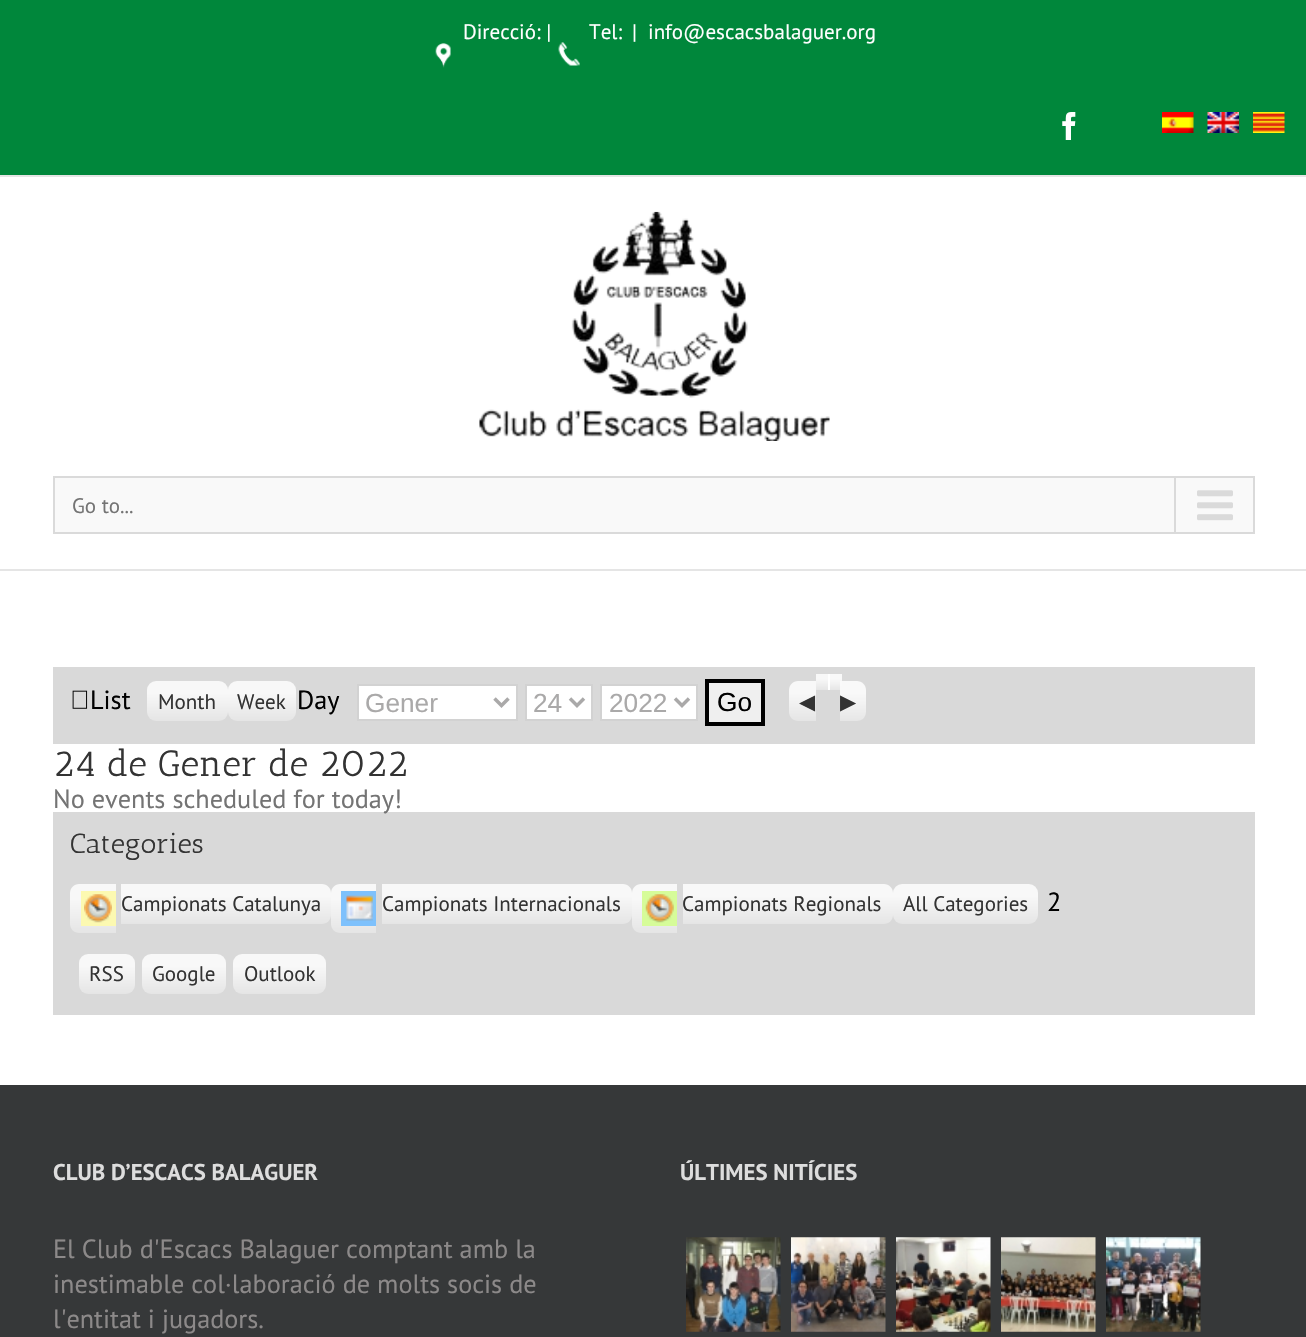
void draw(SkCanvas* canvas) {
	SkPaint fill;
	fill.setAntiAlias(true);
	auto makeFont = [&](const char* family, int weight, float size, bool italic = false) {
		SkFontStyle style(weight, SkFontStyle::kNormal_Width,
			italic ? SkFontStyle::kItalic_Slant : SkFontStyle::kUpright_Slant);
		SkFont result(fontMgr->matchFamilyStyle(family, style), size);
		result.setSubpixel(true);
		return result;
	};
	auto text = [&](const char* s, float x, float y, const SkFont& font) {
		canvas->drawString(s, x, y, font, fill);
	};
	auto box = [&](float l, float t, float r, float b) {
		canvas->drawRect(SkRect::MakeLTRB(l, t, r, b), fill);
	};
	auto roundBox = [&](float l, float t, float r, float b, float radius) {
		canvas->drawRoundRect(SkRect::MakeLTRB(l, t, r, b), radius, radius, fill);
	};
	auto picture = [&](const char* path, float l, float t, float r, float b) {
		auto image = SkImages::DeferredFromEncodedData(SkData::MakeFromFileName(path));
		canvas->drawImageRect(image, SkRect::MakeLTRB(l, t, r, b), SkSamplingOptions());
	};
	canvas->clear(0xFFFFFFFF);
	fill.setColor(0xFF00873B);
	box(0, 0, 1306, 175);
	fill.setColor(0xFFE5E5E5);
	box(0, 175, 1306, 177);
	picture("image0.png", 435, 43, 451, 68);
	picture("image1.png", 558, 42, 580, 66);
	picture("image2.png", 1062, 112, 1076, 140);
	picture("image3.png", 1162, 112, 1194, 133);
	picture("image4.png", 1207, 112, 1239, 133);
	picture("image5.png", 1253, 112, 1285, 133);
	box(0, 569, 1306, 571);
	picture("image6.png", 479, 211, 830, 441);
	fill.setColor(0xFFF9F9F9);
	canvas->drawRect(SkRect::MakeLTRB(54, 477, 1254, 533), fill);
	fill.setStyle(SkPaint::kStroke_Style);
	fill.setStrokeWidth(2);
	fill.setColor(0xFFDADADA);
	canvas->drawRect(SkRect::MakeLTRB(54, 477, 1254, 533), fill);
	fill.setStyle(SkPaint::kFill_Style);
	box(1174, 478, 1176, 532);
	picture("image7.png", 1197, 490, 1233, 521);
	fill.setColor(0xFFD9D9D9);
	box(53, 667, 1255, 744);
	picture("image8.png", 72, 690, 88, 709);
	{
		const SkColor colors[] = {0xFFE5E5E5, 0xFFF8F8F8};
		const float stops[] = {0, 0.7f};
		const SkPoint ends[] = {{187, 721}, {187, 681}};
		fill.setShader(SkGradientShader::MakeLinear(ends, colors, stops, 2, SkTileMode::kClamp));
		fill.setAlpha(255);
	}
	roundBox(147, 681, 228, 721, 9);
	{
		const SkColor colors[] = {0xFFE5E5E5, 0xFFF8F8F8};
		const float stops[] = {0, 0.7f};
		const SkPoint ends[] = {{262, 721}, {262, 681}};
		fill.setShader(SkGradientShader::MakeLinear(ends, colors, stops, 2, SkTileMode::kClamp));
		fill.setAlpha(255);
	}
	roundBox(228, 681, 296, 721, 9);
	fill.setShader(nullptr);
	fill.setColor(0xFFFFFFFF);
	canvas->drawRect(SkRect::MakeLTRB(358, 685, 517, 720), fill);
	fill.setStyle(SkPaint::kStroke_Style);
	fill.setColor(0xFFD2D2D2);
	canvas->drawRect(SkRect::MakeLTRB(358, 685, 517, 720), fill);
	fill.setStrokeWidth(3.5f);
	fill.setColor(0xFFAAA9A9);
	canvas->drawPath(SkPathBuilder().moveTo(494.5f, 698.5f).lineTo(501.5f, 705.5f).lineTo(508.5f, 698.5f).detach(), fill);
	fill.setStyle(SkPaint::kFill_Style);
	fill.setColor(0xFFFFFFFF);
	canvas->drawRect(SkRect::MakeLTRB(526, 685, 592, 720), fill);
	fill.setStyle(SkPaint::kStroke_Style);
	fill.setStrokeWidth(2);
	fill.setColor(0xFFD2D2D2);
	canvas->drawRect(SkRect::MakeLTRB(526, 685, 592, 720), fill);
	fill.setStrokeWidth(3.5f);
	fill.setColor(0xFFAAA9A9);
	canvas->drawPath(SkPathBuilder().moveTo(570, 698.5f).lineTo(577, 705.5f).lineTo(584, 698.5f).detach(), fill);
	fill.setStyle(SkPaint::kFill_Style);
	fill.setColor(0xFFFFFFFF);
	canvas->drawRect(SkRect::MakeLTRB(601, 685, 697, 720), fill);
	fill.setStyle(SkPaint::kStroke_Style);
	fill.setStrokeWidth(2);
	fill.setColor(0xFFD2D2D2);
	canvas->drawRect(SkRect::MakeLTRB(601, 685, 697, 720), fill);
	fill.setStrokeWidth(3.5f);
	fill.setColor(0xFFAAA9A9);
	canvas->drawPath(SkPathBuilder().moveTo(675, 698.5f).lineTo(682, 705.5f).lineTo(689, 698.5f).detach(), fill);
	fill.setStyle(SkPaint::kFill_Style);
	fill.setColor(0xFFEFEFEF);
	canvas->drawRect(SkRect::MakeLTRB(707, 681, 763, 724), fill);
	fill.setStyle(SkPaint::kStroke_Style);
	fill.setStrokeWidth(4);
	fill.setColor(0xFF000000);
	canvas->drawRect(SkRect::MakeLTRB(707, 681, 763, 724), fill);
	fill.setStyle(SkPaint::kFill_Style);
	{
		const SkColor colors[] = {0xFFE5E5E5, 0xFFF8F8F8};
		const float stops[] = {0, 0.7f};
		const SkPoint ends[] = {{802, 721}, {802, 681}};
		fill.setShader(SkGradientShader::MakeLinear(ends, colors, stops, 2, SkTileMode::kClamp));
		fill.setAlpha(255);
	}
	canvas->drawPath(SkPathBuilder().moveTo(798, 681).lineTo(816, 681).lineTo(816, 721).lineTo(798, 721).cubicTo(793, 721, 789, 717, 789, 712).lineTo(789, 690).cubicTo(789, 685, 793, 681, 798, 681).close().detach(), fill);
	{
		const SkColor colors[] = {0xFFE5E5E5, 0xFFF8F8F8};
		const float stops[] = {0, 0.7f};
		const SkPoint ends[] = {{822, 690}, {822, 674}};
		fill.setShader(SkGradientShader::MakeLinear(ends, colors, stops, 2, SkTileMode::kClamp));
		fill.setAlpha(255);
	}
	box(816, 674, 828, 690);
	{
		const SkColor colors[] = {0xF2E6E6E6, 0xF2FAFAFA};
		const float stops[] = {0, 0.7f};
		const SkPoint ends[] = {{836, 690}, {836, 674}};
		fill.setShader(SkGradientShader::MakeLinear(ends, colors, stops, 2, SkTileMode::kClamp));
		fill.setAlpha(255);
	}
	box(830, 674, 842, 690);
	fill.setShader(nullptr);
	fill.setColor(0xFFFFFFFF);
	box(828, 674, 830, 690);
	{
		const SkColor colors[] = {0xF2E6E6E6, 0xF2FAFAFA};
		const float stops[] = {0, 0.7f};
		const SkPoint ends[] = {{853, 721}, {853, 681}};
		fill.setShader(SkGradientShader::MakeLinear(ends, colors, stops, 2, SkTileMode::kClamp));
		fill.setAlpha(255);
	}
	canvas->drawPath(SkPathBuilder().moveTo(840, 681).lineTo(857, 681).cubicTo(862, 681, 866, 685, 866, 690).lineTo(866, 712).cubicTo(866, 717, 862, 721, 857, 721).lineTo(840, 721).close().detach(), fill);
	fill.setShader(nullptr);
	fill.setColor(0xFFD9D9D9);
	box(53, 812, 1255, 1015);
	{
		const SkColor colors[] = {0xFFE5E5E5, 0xFFF8F8F8};
		const float stops[] = {0, 0.7f};
		const SkPoint ends[] = {{93, 933}, {93, 884}};
		fill.setShader(SkGradientShader::MakeLinear(ends, colors, stops, 2, SkTileMode::kClamp));
		fill.setAlpha(255);
	}
	canvas->drawPath(SkPathBuilder().moveTo(79, 884).lineTo(116, 884).lineTo(116, 933).lineTo(79, 933).cubicTo(74, 933, 70, 929, 70, 924).lineTo(70, 893).cubicTo(70, 888, 74, 884, 79, 884).close().detach(), fill);
	fill.setShader(nullptr);
	fill.setColor(0xFFFCF9B1);
	box(81, 891, 116, 926);
	picture("image9.png", 84, 894, 112, 923);
	{
		const SkColor colors[] = {0xFFE5E5E5, 0xFFF8F8F8};
		const float stops[] = {0, 0.7f};
		const SkPoint ends[] = {{226, 924}, {226, 884}};
		fill.setShader(SkGradientShader::MakeLinear(ends, colors, stops, 2, SkTileMode::kClamp));
		fill.setAlpha(255);
	}
	canvas->drawPath(SkPathBuilder().moveTo(121, 884).lineTo(322, 884).cubicTo(327, 884, 331, 888, 331, 893).lineTo(331, 915).cubicTo(331, 920, 327, 924, 322, 924).lineTo(121, 924).close().detach(), fill);
	{
		const SkColor colors[] = {0xFFE5E5E5, 0xFFF8F8F8};
		const float stops[] = {0, 0.7f};
		const SkPoint ends[] = {{354, 933}, {354, 884}};
		fill.setShader(SkGradientShader::MakeLinear(ends, colors, stops, 2, SkTileMode::kClamp));
		fill.setAlpha(255);
	}
	canvas->drawPath(SkPathBuilder().moveTo(340, 884).lineTo(376, 884).lineTo(376, 933).lineTo(340, 933).cubicTo(335, 933, 331, 929, 331, 924).lineTo(331, 893).cubicTo(331, 888, 335, 884, 340, 884).close().detach(), fill);
	fill.setShader(nullptr);
	fill.setColor(0xFF7EC1FC);
	box(341, 891, 376, 926);
	picture("image10.png", 346, 895, 373, 921);
	{
		const SkColor colors[] = {0xFFE5E5E5, 0xFFF8F8F8};
		const float stops[] = {0, 0.7f};
		const SkPoint ends[] = {{507, 924}, {507, 884}};
		fill.setShader(SkGradientShader::MakeLinear(ends, colors, stops, 2, SkTileMode::kClamp));
		fill.setAlpha(255);
	}
	canvas->drawPath(SkPathBuilder().moveTo(382, 884).lineTo(623, 884).cubicTo(628, 884, 632, 888, 632, 893).lineTo(632, 915).cubicTo(632, 920, 628, 924, 623, 924).lineTo(382, 924).close().detach(), fill);
	{
		const SkColor colors[] = {0xFFE5E5E5, 0xFFF8F8F8};
		const float stops[] = {0, 0.7f};
		const SkPoint ends[] = {{655, 933}, {655, 884}};
		fill.setShader(SkGradientShader::MakeLinear(ends, colors, stops, 2, SkTileMode::kClamp));
		fill.setAlpha(255);
	}
	canvas->drawPath(SkPathBuilder().moveTo(641, 884).lineTo(677, 884).lineTo(677, 933).lineTo(641, 933).cubicTo(636, 933, 632, 929, 632, 924).lineTo(632, 893).cubicTo(632, 888, 636, 884, 641, 884).close().detach(), fill);
	fill.setShader(nullptr);
	fill.setColor(0xFFD6FC99);
	box(642, 891, 677, 926);
	picture("image11.png", 645, 894, 674, 923);
	{
		const SkColor colors[] = {0xFFE5E5E5, 0xFFF8F8F8};
		const float stops[] = {0, 0.7f};
		const SkPoint ends[] = {{788, 924}, {788, 884}};
		fill.setShader(SkGradientShader::MakeLinear(ends, colors, stops, 2, SkTileMode::kClamp));
		fill.setAlpha(255);
	}
	canvas->drawPath(SkPathBuilder().moveTo(683, 884).lineTo(884, 884).cubicTo(889, 884, 893, 888, 893, 893).lineTo(893, 915).cubicTo(893, 920, 889, 924, 884, 924).lineTo(683, 924).close().detach(), fill);
	{
		const SkColor colors[] = {0xFFE5E5E5, 0xFFF8F8F8};
		const float stops[] = {0, 0.7f};
		const SkPoint ends[] = {{965, 924}, {965, 884}};
		fill.setShader(SkGradientShader::MakeLinear(ends, colors, stops, 2, SkTileMode::kClamp));
		fill.setAlpha(255);
	}
	roundBox(893, 884, 1038, 924, 9);
	{
		const SkColor colors[] = {0xFFE5E5E5, 0xFFF8F8F8};
		const float stops[] = {0, 0.7f};
		const SkPoint ends[] = {{107, 994}, {107, 954}};
		fill.setShader(SkGradientShader::MakeLinear(ends, colors, stops, 2, SkTileMode::kClamp));
		fill.setAlpha(255);
	}
	roundBox(79, 954, 135, 994, 9);
	{
		const SkColor colors[] = {0xFFE5E5E5, 0xFFF8F8F8};
		const float stops[] = {0, 0.7f};
		const SkPoint ends[] = {{184, 994}, {184, 954}};
		fill.setShader(SkGradientShader::MakeLinear(ends, colors, stops, 2, SkTileMode::kClamp));
		fill.setAlpha(255);
	}
	roundBox(142, 954, 226, 994, 9);
	{
		const SkColor colors[] = {0xFFE5E5E5, 0xFFF8F8F8};
		const float stops[] = {0, 0.7f};
		const SkPoint ends[] = {{279, 994}, {279, 954}};
		fill.setShader(SkGradientShader::MakeLinear(ends, colors, stops, 2, SkTileMode::kClamp));
		fill.setAlpha(255);
	}
	roundBox(233, 954, 326, 994, 9);
	fill.setShader(nullptr);
	fill.setColor(0xFF363839);
	box(0, 1085, 1306, 1337);
	picture("image12.png", 686, 1237, 781, 1332);
	picture("image13.png", 791, 1237, 886, 1332);
	picture("image14.png", 896, 1237, 991, 1332);
	picture("image15.png", 1001, 1237, 1096, 1332);
	picture("image16.png", 1106, 1237, 1201, 1332);
	auto font1 = makeFont("PT Sans", 400, 21);
	fill.setColor(0xFFFFFFFF);
	text("Direcció: |", 463, 39, font1);
	text("Tel:", 589, 39, font1);
	text("|", 632, 39, font1);
	text("info@escacsbalaguer.org", 648, 39, font1);
	fill.setColor(0xFF747474);
	text("Go to...", 72, 513, font1);
	auto font2 = makeFont("PT Sans", 400, 26.25f);
	fill.setColor(0xFF000000);
	text("List", 90, 709, font2);
	fill.setColor(0xFF333333);
	text("Month", 158, 709, font1);
	text("Week", 237, 709, font1);
	fill.setColor(0xFF000000);
	text("Day", 297, 709, font2);
	auto font3 = makeFont("Liberation Sans", 400, 26.25f);
	fill.setColor(0xFFAAA9A9);
	text("Gener", 365, 712, font3);
	text("24", 533, 712, font3);
	text("2022", 609, 712, font3);
	fill.setColor(0xFF000000);
	text("Go", 717, 711, font3);
	auto font4 = makeFont("DejaVu Sans", 400, 21);
	fill.setColor(0xFF333333);
	text("◀", 799, 709, font4);
	text("▶", 840, 709, font4);
	auto font5 = makeFont("Antic Slab", 400, 36.75f);
	text("24 de Gener de 2022", 53, 776, font5);
	fill.setColor(0xFF747474);
	text("No events scheduled for today!", 53, 808, font2);
	auto font6 = makeFont("Antic Slab", 400, 28);
	fill.setColor(0xFF333333);
	text("Categories", 70, 853, font6);
	text("Campionats Catalunya", 121, 911, font1);
	text("Campionats Internacionals", 382, 911, font1);
	text("Campionats Regionals", 682, 911, font1);
	text("All Categories", 903, 911, font1);
	fill.setColor(0xFF000000);
	text("2", 1047, 911, font2);
	fill.setColor(0xFF333333);
	text("RSS", 89, 981, font1);
	text("Google", 152, 981, font1);
	text("Outlook", 244, 981, font1);
	auto font7 = makeFont("PT Sans", 700, 22.75f);
	fill.setColor(0xFFDDDDDD);
	text("CLUB D’ESCACS BALAGUER", 53, 1180, font7);
	fill.setColor(0xFF8C8989);
	text("El Club d'Escacs Balaguer comptant amb la", 53, 1258, font2);
	text("inestimable col·laboració de molts socis de", 53, 1293, font2);
	text("l'entitat i jugadors.", 53, 1328, font2);
	fill.setColor(0xFFDDDDDD);
	text("ÚLTIMES NITÍCIES", 680, 1180, font7);
}
